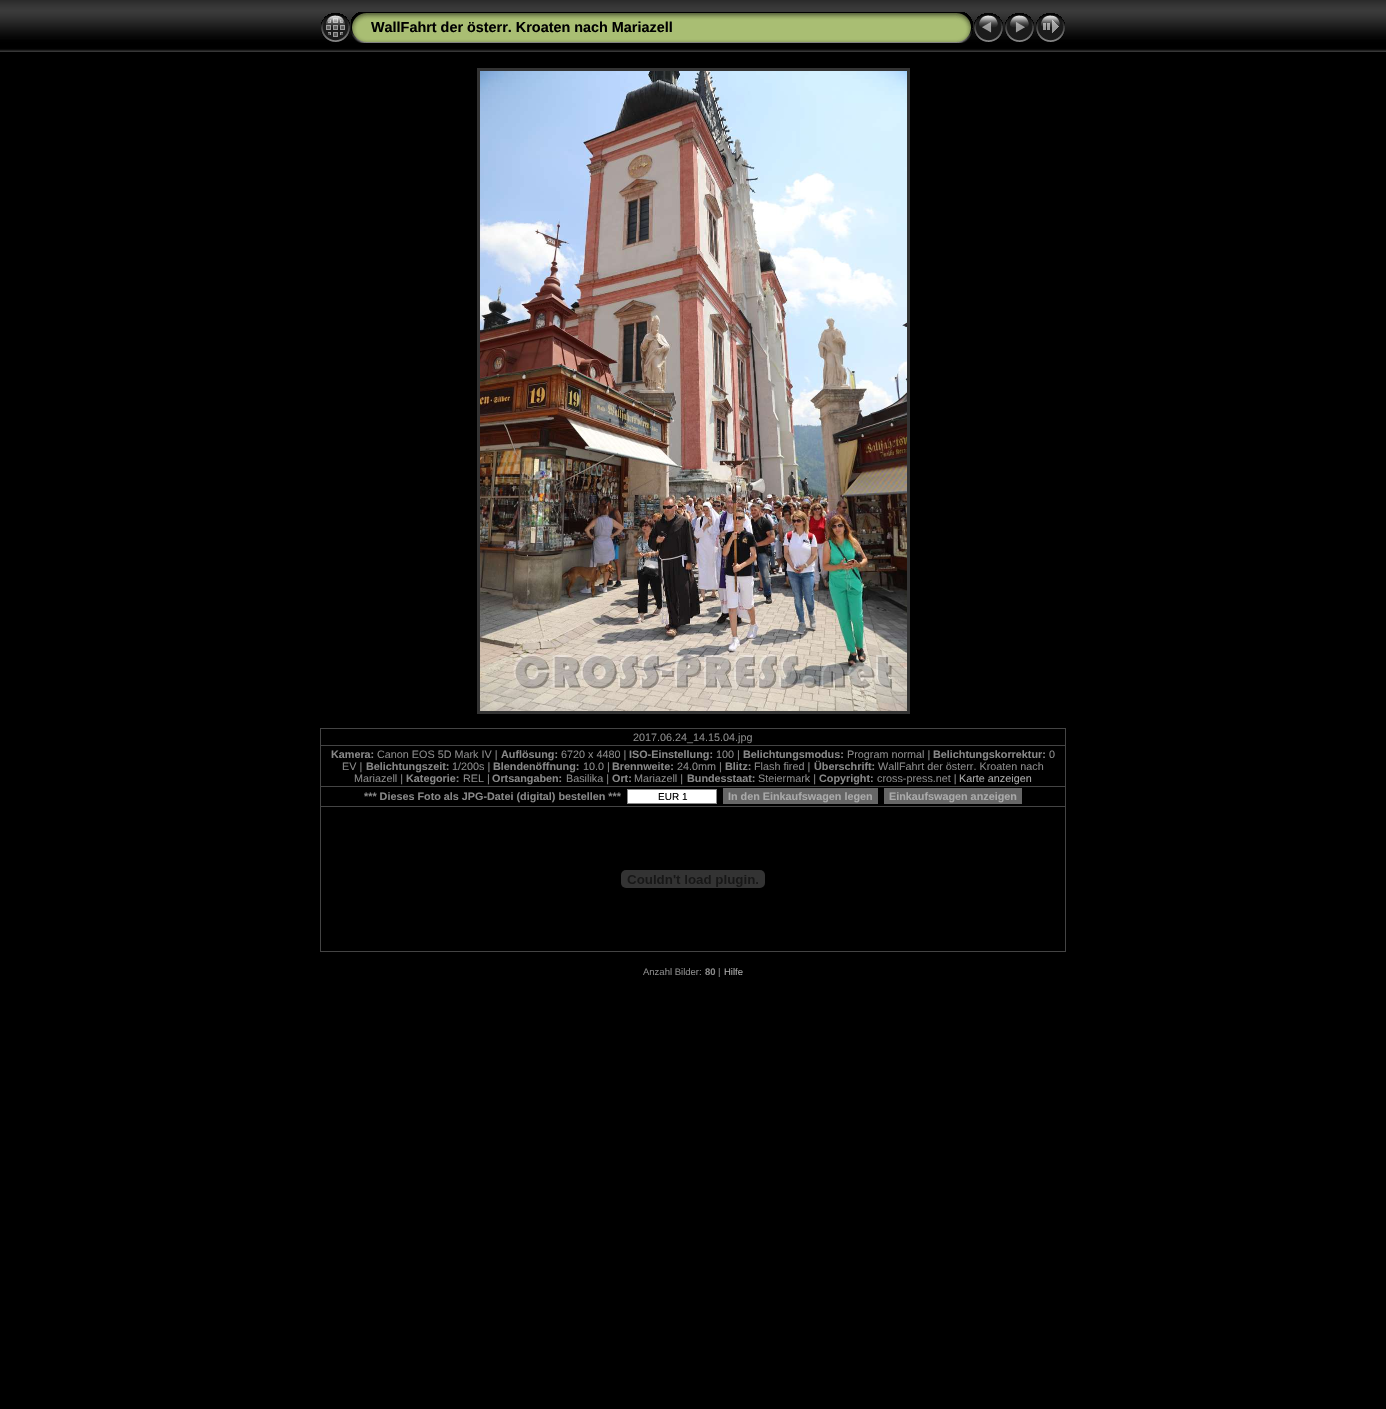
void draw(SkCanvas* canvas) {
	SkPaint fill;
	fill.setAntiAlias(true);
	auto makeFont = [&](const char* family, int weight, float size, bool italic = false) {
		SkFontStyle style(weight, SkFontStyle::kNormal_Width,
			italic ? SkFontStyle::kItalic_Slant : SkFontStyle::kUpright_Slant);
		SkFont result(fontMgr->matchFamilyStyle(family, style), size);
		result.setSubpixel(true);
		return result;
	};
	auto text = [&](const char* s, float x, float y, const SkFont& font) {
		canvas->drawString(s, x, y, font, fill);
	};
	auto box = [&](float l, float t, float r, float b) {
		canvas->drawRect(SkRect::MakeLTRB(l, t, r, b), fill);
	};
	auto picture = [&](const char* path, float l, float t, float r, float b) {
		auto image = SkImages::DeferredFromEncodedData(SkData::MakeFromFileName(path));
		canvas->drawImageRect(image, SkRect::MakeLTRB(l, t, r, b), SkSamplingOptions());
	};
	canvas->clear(0xFF000000);
	picture("image0.png", 0, 0, 1386, 52);
	picture("image1.png", 321, 13, 350, 42);
	picture("image2.png", 351, 12, 371, 43);
	picture("image3.png", 371, 12, 953, 43);
	picture("image4.png", 953, 12, 973, 43);
	picture("image5.png", 974, 13, 1003, 42);
	picture("image6.png", 1005, 13, 1034, 42);
	picture("image7.png", 1036, 13, 1065, 42);
	fill.setStyle(SkPaint::kStroke_Style);
	fill.setStrokeWidth(3);
	fill.setColor(0xFF333333);
	canvas->drawRect(SkRect::MakeLTRB(478.5f, 69.5f, 908.5f, 712.5f), fill);
	picture("image8.png", 480, 71, 907, 711);
	fill.setStyle(SkPaint::kFill_Style);
	fill.setColor(0xFF444444);
	box(320, 728, 1066, 729);
	box(1065, 728, 1066, 952);
	box(320, 951, 1066, 952);
	box(320, 728, 321, 952);
	box(320, 745, 1066, 746);
	box(320, 786, 1066, 787);
	fill.setColor(0xFFFFFFFF);
	canvas->drawRect(SkRect::MakeLTRB(627.5f, 789.5f, 716.5f, 803.5f), fill);
	fill.setStyle(SkPaint::kStroke_Style);
	fill.setStrokeWidth(1);
	fill.setColor(0xFF888888);
	canvas->drawRect(SkRect::MakeLTRB(627.5f, 789.5f, 716.5f, 803.5f), fill);
	fill.setStyle(SkPaint::kFill_Style);
	fill.setColor(0xFF666666);
	box(723, 788, 878, 804);
	box(884, 788, 1022, 804);
	fill.setColor(0xFF444444);
	box(320, 806, 1066, 807);
	picture("image9.png", 621, 870, 765, 888);
	auto font1 = makeFont("Liberation Sans", 700, 14.4f);
	fill.setColor(0xFF000000);
	text("WallFahrt der österr. Kroaten nach Mariazell", 371, 32, font1);
	auto font2 = makeFont("Liberation Sans", 400, 10.8f);
	fill.setColor(0xFF888888);
	text("2017.06.24_14.15.04.jpg", 633, 741, font2);
	auto font3 = makeFont("Liberation Sans", 700, 10.8f);
	text("Kamera:", 331, 758, font3);
	text("Canon EOS 5D Mark IV |", 377, 758, font2);
	text("Auflösung:", 501, 758, font3);
	text("6720 x 4480 |", 561, 758, font2);
	text("ISO-Einstellung:", 629, 758, font3);
	text("100 |", 716, 758, font2);
	text("Belichtungsmodus:", 743, 758, font3);
	text("Program normal |", 847, 758, font2);
	text("Belichtungskorrektur:", 933, 758, font3);
	text("0", 1049, 758, font2);
	text("EV |", 342, 770, font2);
	text("Belichtungszeit:", 366, 770, font3);
	text("1/200s |", 452, 770, font2);
	text("Blendenöffnung:", 493, 770, font3);
	text("10.0 |", 583, 770, font2);
	text("Brennweite:", 612, 770, font3);
	text("24.0mm |", 677, 770, font2);
	text("Blitz:", 725, 770, font3);
	text("Flash fired |", 754, 770, font2);
	text("Überschrift:", 814, 770, font3);
	text("WallFahrt der österr. Kroaten nach", 878, 770, font2);
	text("Mariazell |", 354, 782, font2);
	text("Kategorie:", 406, 782, font3);
	text("REL |", 463, 782, font2);
	text("Ortsangaben:", 492, 782, font3);
	text("Basilika |", 566, 782, font2);
	text("Ort:", 612, 782, font3);
	text("Mariazell |", 634, 782, font2);
	text("Bundesstaat:", 687, 782, font3);
	text("Steiermark |", 758, 782, font2);
	text("Copyright:", 819, 782, font3);
	text("cross-press.net |", 877, 782, font2);
	fill.setColor(0xFFAAAAAA);
	text("Karte anzeigen", 959, 782, font2);
	fill.setColor(0xFF888888);
	text("*** Dieses Foto als JPG-Datei (digital) bestellen ***", 364, 800, font3);
	auto font4 = makeFont("Liberation Sans", 400, 10);
	fill.setColor(0xFF000000);
	text("EUR 1", 658, 800, font4);
	fill.setColor(0xFFAAAAAA);
	text("In den Einkaufswagen legen", 728, 800, font3);
	text("Einkaufswagen anzeigen", 889, 800, font3);
	auto font5 = makeFont("Liberation Sans", 400, 9.5f);
	fill.setColor(0xFF888888);
	text("Anzahl Bilder:", 643, 975, font5);
	auto font6 = makeFont("Liberation Sans", 700, 9.5f);
	text("80", 705, 975, font6);
	text("|", 718, 975, font5);
	fill.setColor(0xFFAAAAAA);
	text("Hilfe", 724, 975, font5);
}
